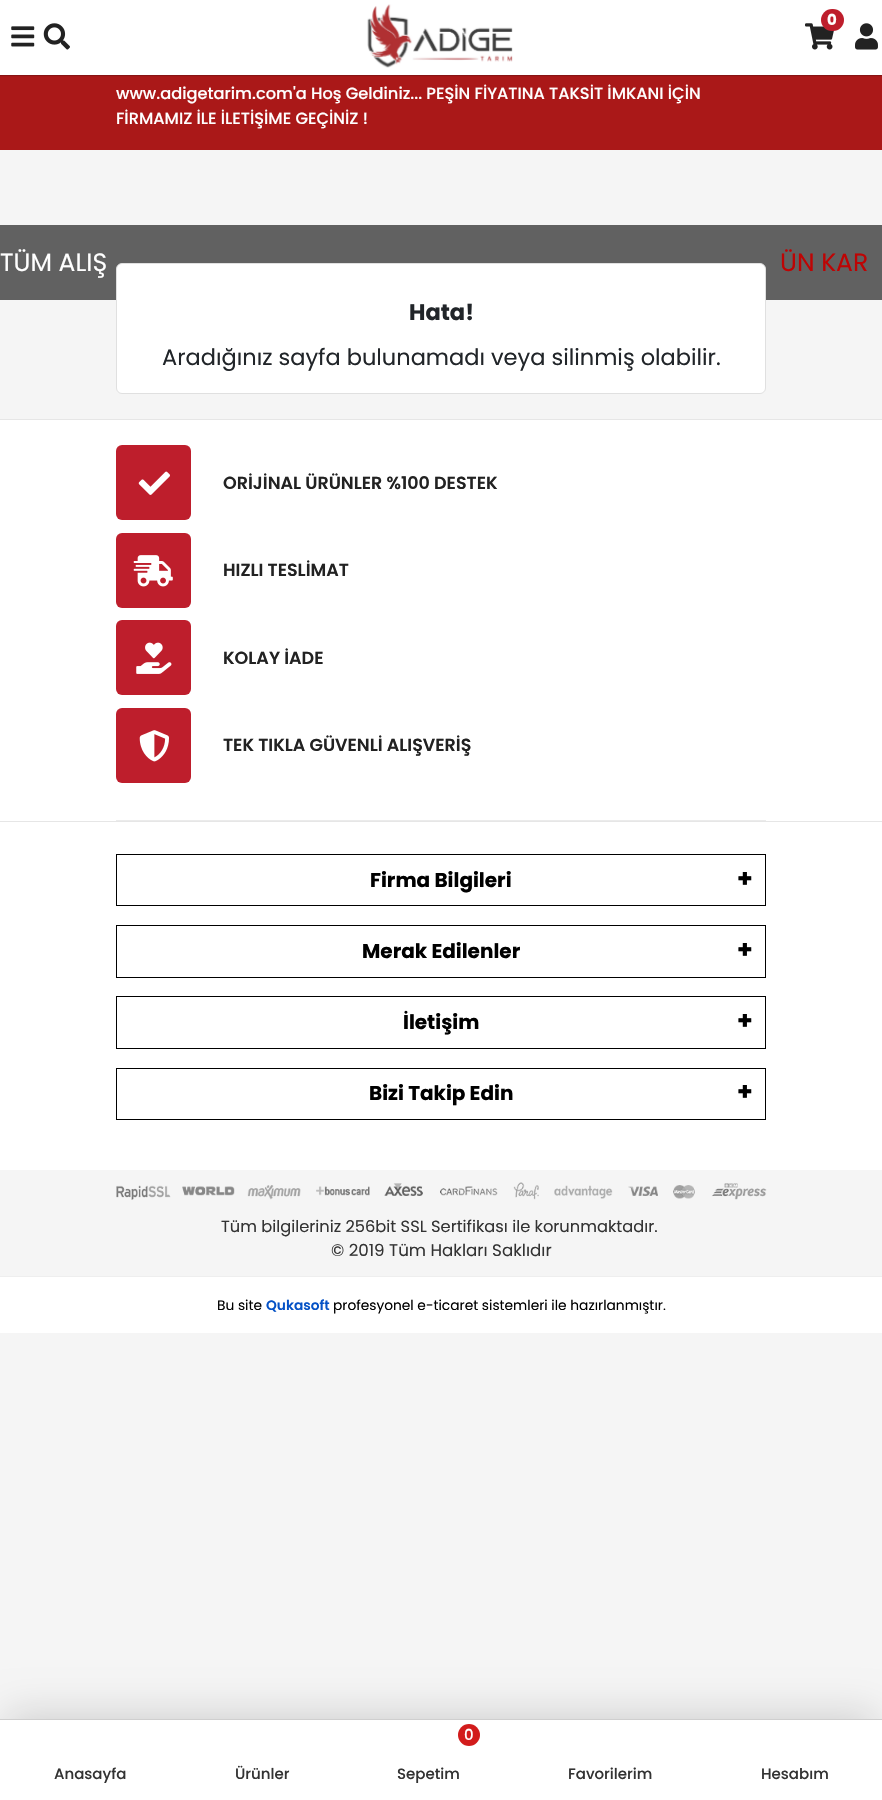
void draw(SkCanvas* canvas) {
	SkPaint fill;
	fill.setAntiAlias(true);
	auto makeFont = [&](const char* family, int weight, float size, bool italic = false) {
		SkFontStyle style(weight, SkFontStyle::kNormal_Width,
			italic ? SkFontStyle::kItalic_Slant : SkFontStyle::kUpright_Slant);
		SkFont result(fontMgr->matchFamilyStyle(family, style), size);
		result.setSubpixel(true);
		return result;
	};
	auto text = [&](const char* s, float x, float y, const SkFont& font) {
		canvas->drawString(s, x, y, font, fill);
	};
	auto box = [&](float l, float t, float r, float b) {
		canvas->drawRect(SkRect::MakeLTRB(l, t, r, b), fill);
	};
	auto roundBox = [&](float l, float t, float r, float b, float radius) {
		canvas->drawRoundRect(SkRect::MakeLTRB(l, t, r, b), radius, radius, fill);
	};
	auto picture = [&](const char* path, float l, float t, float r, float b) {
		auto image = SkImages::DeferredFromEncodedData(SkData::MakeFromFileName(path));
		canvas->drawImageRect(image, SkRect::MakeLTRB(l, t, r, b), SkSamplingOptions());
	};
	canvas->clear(0xFFF5F5F5);
	fill.setColor(0xFFAA1818);
	box(0, 75, 882, 150);
	fill.setColor(0x33000000);
	fill.setMaskFilter(SkMaskFilter::MakeBlur(kNormal_SkBlurStyle, 0.5f));
	canvas->drawRect(SkRect::MakeLTRB(0, 1, 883, 76), fill);
	fill.setMaskFilter(nullptr);
	fill.setColor(0xFFFFFFFF);
	box(0, 0, 882, 75);
	picture("image0.png", 367, 4, 513, 68);
	picture("image1.png", 805, 23, 834, 50);
	fill.setColor(0xFFBE1E2C);
	roundBox(821, 9, 844, 31, 11);
	picture("image2.png", 855, 23, 878, 50);
	picture("image3.png", 11, 26, 35, 47);
	picture("image4.png", 43, 23, 70, 50);
	fill.setColor(0xFF616161);
	box(0, 225, 882, 300);
	fill.setColor(0xFFFFFFFF);
	canvas->drawRoundRect(SkRect::MakeLTRB(116.5f, 263.5f, 765.5f, 393.5f), 5.5f, 5.5f, fill);
	fill.setStyle(SkPaint::kStroke_Style);
	fill.setStrokeWidth(1);
	fill.setColor(0xFFE0E0E0);
	canvas->drawRoundRect(SkRect::MakeLTRB(116.5f, 263.5f, 765.5f, 393.5f), 5.5f, 5.5f, fill);
	fill.setStyle(SkPaint::kFill_Style);
	fill.setColor(0xFFFFFFFF);
	box(0, 420, 882, 1170);
	fill.setColor(0xFFE6E6E6);
	box(0, 419, 882, 420);
	box(0, 821, 882, 822);
	fill.setColor(0xFFEBEBEB);
	box(116, 820, 766, 821);
	fill.setColor(0xFFBE1E2C);
	roundBox(116, 445, 191, 520, 6);
	picture("image5.png", 138, 471, 170, 495);
	roundBox(116, 533, 191, 608, 6);
	picture("image6.png", 133, 555, 173, 587);
	roundBox(116, 620, 191, 695, 6);
	picture("image7.png", 136, 642, 172, 674);
	roundBox(116, 708, 191, 783, 6);
	picture("image8.png", 139, 730, 169, 762);
	fill.setStyle(SkPaint::kStroke_Style);
	fill.setColor(0xFF000000);
	canvas->drawRect(SkRect::MakeLTRB(116.5f, 854.5f, 765.5f, 905.5f), fill);
	canvas->drawRect(SkRect::MakeLTRB(116.5f, 925.5f, 765.5f, 977.5f), fill);
	canvas->drawRect(SkRect::MakeLTRB(116.5f, 996.5f, 765.5f, 1048.5f), fill);
	canvas->drawRect(SkRect::MakeLTRB(116.5f, 1068.5f, 765.5f, 1119.5f), fill);
	picture("image9.png", 116, 1182, 767, 1200);
	fill.setStyle(SkPaint::kFill_Style);
	fill.setColor(0xFFFFFFFF);
	box(0, 1277, 882, 1333);
	fill.setColor(0xFFEEEEEE);
	box(0, 1276, 882, 1277);
	fill.setColor(0x26000000);
	fill.setMaskFilter(SkMaskFilter::MakeBlur(kNormal_SkBlurStyle, 19));
	canvas->drawRect(SkRect::MakeLTRB(6, 1713, 876, 1781), fill);
	fill.setMaskFilter(nullptr);
	fill.setColor(0xFFFFFFFF);
	box(0, 1720, 882, 1800);
	fill.setColor(0xFFCFCFCF);
	box(0, 1719, 882, 1720);
	fill.setColor(0xFFD21C1C);
	canvas->drawCircle(469, 1735, 11, fill);
	auto font1 = makeFont("Poppins", 700, 15);
	fill.setColor(0xFFFFFFFF);
	text("0", 827, 25, font1);
	auto font2 = makeFont("Poppins", 500, 16.25f);
	text("www.adigetarim.com'a Hoş Geldiniz... PEŞİN FİYATINA TAKSİT İMKANI İÇİN", 116, 99, font2);
	text("FİRMAMIZ İLE İLETİŞİME GEÇİNİZ !", 116, 124, font2);
	auto font3 = makeFont("Poppins", 400, 25);
	text("TÜM ALIŞ", 0, 271, font3);
	fill.setColor(0xFFBE0404);
	text("ÜN KAR", 780, 271, font3);
	auto font4 = makeFont("Poppins", 700, 22.5f);
	fill.setColor(0xFF212529);
	text("Hata!", 409, 320, font4);
	auto font5 = makeFont("Poppins", 400, 22.5f);
	text("Aradığınız sayfa bulunamadı veya silinmiş olabilir.", 162, 365, font5);
	auto font6 = makeFont("Poppins", 600, 17.5f);
	fill.setColor(0xFF222222);
	text("ORİJİNAL ÜRÜNLER %100 DESTEK", 223, 489, font6);
	text("HIZLI TESLİMAT", 223, 576, font6);
	text("KOLAY İADE", 223, 664, font6);
	text("TEK TIKLA GÜVENLİ ALIŞVERİŞ", 223, 751, font6);
	auto font7 = makeFont("Poppins", 700, 20);
	fill.setColor(0xFF000000);
	text("Firma Bilgileri", 370, 887, font7);
	auto font8 = makeFont("Poppins", 700, 25);
	text("+", 737, 887, font8);
	text("Merak Edilenler", 362, 958, font7);
	text("+", 737, 958, font8);
	text("İletişim", 403, 1029, font7);
	text("+", 737, 1029, font8);
	text("Bizi Takip Edin", 369, 1100, font7);
	text("+", 737, 1100, font8);
	auto font9 = makeFont("Poppins", 400, 16.25f);
	fill.setColor(0xFF333333);
	text("Tüm bilgileriniz 256bit SSL Sertifikası ile korunmaktadır.", 221, 1232, font9);
	auto font10 = makeFont("Poppins", 400, 16.7f);
	text("© 2019 Tüm Hakları Saklıdır", 331, 1256, font10);
	auto font11 = makeFont("Poppins", 400, 13.75f);
	fill.setColor(0xFF000000);
	text("Bu site", 217, 1310, font11);
	auto font12 = makeFont("Poppins", 600, 13.75f);
	fill.setColor(0xFF0552C6);
	text("Qukasoft", 266, 1310, font12);
	fill.setColor(0xFF000000);
	text("profesyonel e-ticaret sistemleri ile hazırlanmıştır.", 333, 1310, font11);
	auto font13 = makeFont("Poppins", 500, 15);
	fill.setColor(0xFF333333);
	text("Anasayfa", 54, 1779, font13);
	text("Ürünler", 235, 1779, font13);
	fill.setColor(0xFFFFFFFF);
	text("0", 464, 1740, font13);
	fill.setColor(0xFF333333);
	text("Sepetim", 397, 1779, font13);
	text("Favorilerim", 568, 1779, font13);
	text("Hesabım", 761, 1779, font13);
}
